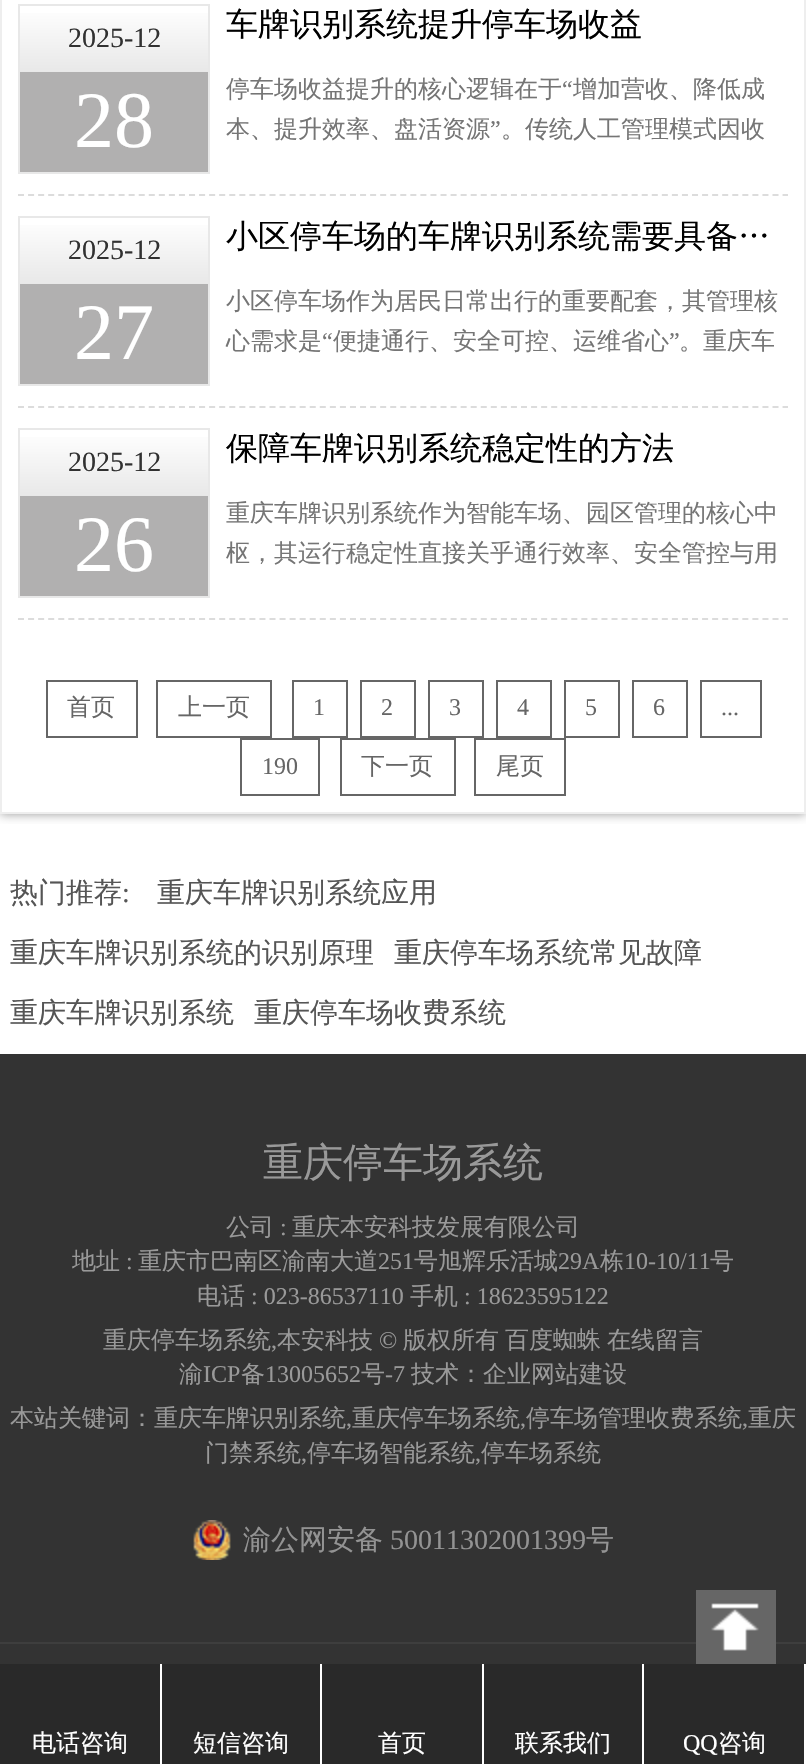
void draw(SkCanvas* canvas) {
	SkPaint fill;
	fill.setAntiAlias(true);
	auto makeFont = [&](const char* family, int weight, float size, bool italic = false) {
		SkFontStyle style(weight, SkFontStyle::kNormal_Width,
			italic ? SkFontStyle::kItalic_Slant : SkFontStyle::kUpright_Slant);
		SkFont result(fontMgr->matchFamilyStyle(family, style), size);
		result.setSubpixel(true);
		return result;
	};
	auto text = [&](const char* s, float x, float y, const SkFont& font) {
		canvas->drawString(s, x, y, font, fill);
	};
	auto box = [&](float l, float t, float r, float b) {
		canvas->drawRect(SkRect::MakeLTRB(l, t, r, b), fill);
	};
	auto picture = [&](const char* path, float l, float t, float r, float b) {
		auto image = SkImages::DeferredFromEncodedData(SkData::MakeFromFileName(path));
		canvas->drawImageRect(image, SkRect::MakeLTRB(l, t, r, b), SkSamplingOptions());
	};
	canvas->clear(0xFFFFFFFF);
	canvas->save();
	canvas->clipRect(SkRect::MakeLTRB(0, 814, 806, 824));
	fill.setColor(0xFF999999);
	fill.setMaskFilter(SkMaskFilter::MakeBlur(kNormal_SkBlurStyle, 5));
	canvas->drawRect(SkRect::MakeLTRB(0, -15, 806, 814), fill);
	fill.setMaskFilter(nullptr);
	canvas->restore();
	fill.setStyle(SkPaint::kStroke_Style);
	fill.setStrokeWidth(2);
	fill.setColor(0xFFEEEEEE);
	canvas->drawRect(SkRect::MakeLTRB(1, -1, 805, 813), fill);
	fill.setColor(0xFFDCDCDC);
	fill.setPathEffect(SkDashPathEffect::Make({{6, 4.06f}}, 0));
	canvas->drawPath(SkPathBuilder().moveTo(18, 195).lineTo(788, 195).detach(), fill);
	fill.setPathEffect(nullptr);
	fill.setColor(0xFFE8E8E8);
	canvas->drawRect(SkRect::MakeLTRB(19, 5, 209, 173), fill);
	fill.setStyle(SkPaint::kFill_Style);
	{
		const SkColor colors[] = {0xFFFFFFFF, 0xFFE8E8E8};
		const float stops[] = {0, 1};
		const SkPoint ends[] = {{114, 6}, {114, 72}};
		fill.setShader(SkGradientShader::MakeLinear(ends, colors, stops, 2, SkTileMode::kClamp));
		fill.setAlpha(255);
	}
	box(20, 13, 208, 72);
	fill.setShader(nullptr);
	fill.setColor(0xFFB1B0B0);
	box(20, 72, 208, 172);
	fill.setStyle(SkPaint::kStroke_Style);
	fill.setColor(0xFFDCDCDC);
	fill.setPathEffect(SkDashPathEffect::Make({{6, 4.06f}}, 0));
	canvas->drawPath(SkPathBuilder().moveTo(18, 407).lineTo(788, 407).detach(), fill);
	fill.setPathEffect(nullptr);
	fill.setColor(0xFFE8E8E8);
	canvas->drawRect(SkRect::MakeLTRB(19, 217, 209, 385), fill);
	fill.setStyle(SkPaint::kFill_Style);
	{
		const SkColor colors[] = {0xFFFFFFFF, 0xFFE8E8E8};
		const float stops[] = {0, 1};
		const SkPoint ends[] = {{114, 218}, {114, 284}};
		fill.setShader(SkGradientShader::MakeLinear(ends, colors, stops, 2, SkTileMode::kClamp));
		fill.setAlpha(255);
	}
	box(20, 225, 208, 284);
	fill.setShader(nullptr);
	fill.setColor(0xFFB1B0B0);
	box(20, 284, 208, 384);
	fill.setStyle(SkPaint::kStroke_Style);
	fill.setColor(0xFFDCDCDC);
	fill.setPathEffect(SkDashPathEffect::Make({{6, 4.06f}}, 0));
	canvas->drawPath(SkPathBuilder().moveTo(18, 619).lineTo(788, 619).detach(), fill);
	fill.setPathEffect(nullptr);
	fill.setColor(0xFFE8E8E8);
	canvas->drawRect(SkRect::MakeLTRB(19, 429, 209, 597), fill);
	fill.setStyle(SkPaint::kFill_Style);
	{
		const SkColor colors[] = {0xFFFFFFFF, 0xFFE8E8E8};
		const float stops[] = {0, 1};
		const SkPoint ends[] = {{114, 430}, {114, 496}};
		fill.setShader(SkGradientShader::MakeLinear(ends, colors, stops, 2, SkTileMode::kClamp));
		fill.setAlpha(255);
	}
	box(20, 437, 208, 496);
	fill.setShader(nullptr);
	fill.setColor(0xFFB1B0B0);
	box(20, 496, 208, 596);
	fill.setStyle(SkPaint::kStroke_Style);
	fill.setColor(0xFF666666);
	canvas->drawRect(SkRect::MakeLTRB(47, 681, 137, 737), fill);
	canvas->drawRect(SkRect::MakeLTRB(157, 681, 271, 737), fill);
	canvas->drawRect(SkRect::MakeLTRB(293, 681, 347, 737), fill);
	canvas->drawRect(SkRect::MakeLTRB(361, 681, 415, 737), fill);
	canvas->drawRect(SkRect::MakeLTRB(429, 681, 483, 737), fill);
	canvas->drawRect(SkRect::MakeLTRB(497, 681, 551, 737), fill);
	canvas->drawRect(SkRect::MakeLTRB(565, 681, 619, 737), fill);
	canvas->drawRect(SkRect::MakeLTRB(633, 681, 687, 737), fill);
	canvas->drawRect(SkRect::MakeLTRB(701, 681, 761, 737), fill);
	canvas->drawRect(SkRect::MakeLTRB(241, 739, 319, 795), fill);
	canvas->drawRect(SkRect::MakeLTRB(341, 739, 455, 795), fill);
	canvas->drawRect(SkRect::MakeLTRB(475, 739, 565, 795), fill);
	fill.setStyle(SkPaint::kFill_Style);
	fill.setColor(0xFF333333);
	box(0, 1054, 806, 1664);
	fill.setColor(0xFF3E3E3E);
	box(0, 1642, 806, 1644);
	picture("image0.png", 193, 1520, 231, 1560);
	fill.setColor(0xFF666666);
	box(696, 1590, 776, 1664);
	picture("image1.png", 711, 1603, 759, 1651);
	fill.setColor(0xFF292929);
	box(0, 1664, 804, 1764);
	fill.setColor(0xFFFFFFFF);
	box(160, 1664, 162, 1764);
	box(320, 1664, 322, 1764);
	box(482, 1664, 484, 1764);
	box(642, 1664, 644, 1764);
	auto font1 = makeFont("Liberation Serif", 400, 28);
	fill.setColor(0xFF313131);
	text("2025-12", 68, 47, font1);
	auto font2 = makeFont("Liberation Serif", 400, 80);
	fill.setColor(0xFFFFFFFF);
	text("28", 74, 147, font2);
	auto font3 = makeFont("WenQuanYi Zen Hei", 500, 32);
	fill.setColor(0xFF000000);
	text("车牌识别系统提升停车场收益", 226, 35, font3);
	auto font4 = makeFont("WenQuanYi Zen Hei", 500, 24);
	fill.setColor(0xFF757575);
	text("停车场收益提升的核心逻辑在于", 226, 97, font4);
	auto font5 = makeFont("Liberation Serif", 400, 24);
	text("“", 562, 97, font5);
	text("增加营收、降低成", 573, 97, font4);
	text("本、提升效率、盘活资源", 226, 137, font4);
	text("”", 490, 137, font5);
	text("。传统人工管理模式因收", 501, 137, font4);
	fill.setColor(0xFF313131);
	text("2025-12", 68, 259, font1);
	fill.setColor(0xFFFFFFFF);
	text("27", 74, 359, font2);
	fill.setColor(0xFF000000);
	text("小区停车场的车牌识别系统需要具备…", 226, 247, font3);
	fill.setColor(0xFF757575);
	text("小区停车场作为居民日常出行的重要配套，其管理核", 226, 309, font4);
	text("心需求是", 226, 349, font4);
	text("“", 322, 349, font5);
	text("便捷通行、安全可控、运维省心", 333, 349, font4);
	text("”", 669, 349, font5);
	text("。重庆车", 679, 349, font4);
	fill.setColor(0xFF313131);
	text("2025-12", 68, 471, font1);
	fill.setColor(0xFFFFFFFF);
	text("26", 74, 571, font2);
	fill.setColor(0xFF000000);
	text("保障车牌识别系统稳定性的方法", 226, 459, font3);
	fill.setColor(0xFF757575);
	text("重庆车牌识别系统作为智能车场、园区管理的核心中", 226, 521, font4);
	text("枢，其运行稳定性直接关乎通行效率、安全管控与用", 226, 561, font4);
	fill.setColor(0xFF666666);
	text("首页", 67, 715, font4);
	text("上一页", 178, 715, font4);
	text("1", 313, 715, font5);
	text("2", 381, 715, font5);
	text("3", 449, 715, font5);
	text("4", 517, 715, font5);
	text("5", 585, 715, font5);
	text("6", 653, 715, font5);
	text("...", 721, 715, font5);
	text("190", 262, 774, font5);
	text("下一页", 361, 774, font4);
	text("尾页", 496, 774, font4);
	auto font6 = makeFont("WenQuanYi Zen Hei", 500, 28);
	fill.setColor(0xFF555555);
	text("热门推荐", 10, 902, font6);
	text(":", 122, 902, font1);
	text("重庆车牌识别系统应用", 157, 902, font6);
	text("重庆车牌识别系统的识别原理", 10, 962, font6);
	text("重庆停车场系统常见故障", 394, 962, font6);
	text("重庆车牌识别系统", 10, 1022, font6);
	text("重庆停车场收费系统", 254, 1022, font6);
	auto font7 = makeFont("WenQuanYi Zen Hei", 500, 40);
	fill.setColor(0xFF999999);
	text("重庆停车场系统", 263, 1176, font7);
	text("公司", 226, 1235, font4);
	text(":", 280, 1235, font5);
	text("重庆本安科技发展有限公司", 292, 1235, font4);
	text("地址", 72, 1269, font4);
	text(":", 126, 1269, font5);
	text("重庆市巴南区渝南大道", 138, 1269, font4);
	text("251", 378, 1269, font5);
	text("号旭辉乐活城", 414, 1269, font4);
	text("29A", 558, 1269, font5);
	text("栋", 600, 1269, font4);
	text("10-10/11", 624, 1269, font5);
	text("号", 710, 1269, font4);
	text("电话", 197, 1304, font4);
	text(": 023-86537110", 251, 1304, font5);
	text("手机", 410, 1304, font4);
	text(": 18623595122", 464, 1304, font5);
	text("重庆停车场系统", 103, 1348, font4);
	text(",", 271, 1348, font5);
	text("本安科技", 277, 1348, font4);
	text("©", 379, 1348, font5);
	text("版权所有", 403, 1348, font4);
	text("百度蜘蛛", 505, 1348, font4);
	text("在线留言", 607, 1348, font4);
	text("渝", 179, 1382, font4);
	text("ICP", 203, 1382, font5);
	text("备", 241, 1382, font4);
	text("13005652", 265, 1382, font5);
	text("号", 361, 1382, font4);
	text("-7", 385, 1382, font5);
	text("技术：企业网站建设", 411, 1382, font4);
	text("本站关键词：重庆车牌识别系统", 10, 1426, font4);
	text(",", 346, 1426, font5);
	text("重庆停车场系统", 352, 1426, font4);
	text(",", 520, 1426, font5);
	text("停车场管理收费系统", 526, 1426, font4);
	text(",", 742, 1426, font5);
	text("重庆", 748, 1426, font4);
	text("门禁系统", 205, 1461, font4);
	text(",", 301, 1461, font5);
	text("停车场智能系统", 307, 1461, font4);
	text(",", 475, 1461, font5);
	text("停车场系统", 481, 1461, font4);
	fill.setColor(0xFF939393);
	text("渝公网安备", 243, 1549, font6);
	text("50011302001399", 390, 1549, font1);
	text("号", 586, 1549, font6);
	fill.setColor(0xFFFFFFFF);
	text("电话咨询", 32, 1751, font4);
	text("短信咨询", 193, 1751, font4);
	text("首页", 378, 1751, font4);
	text("联系我们", 515, 1751, font4);
	text("QQ", 683, 1751, font5);
	text("咨询", 718, 1751, font4);
}
